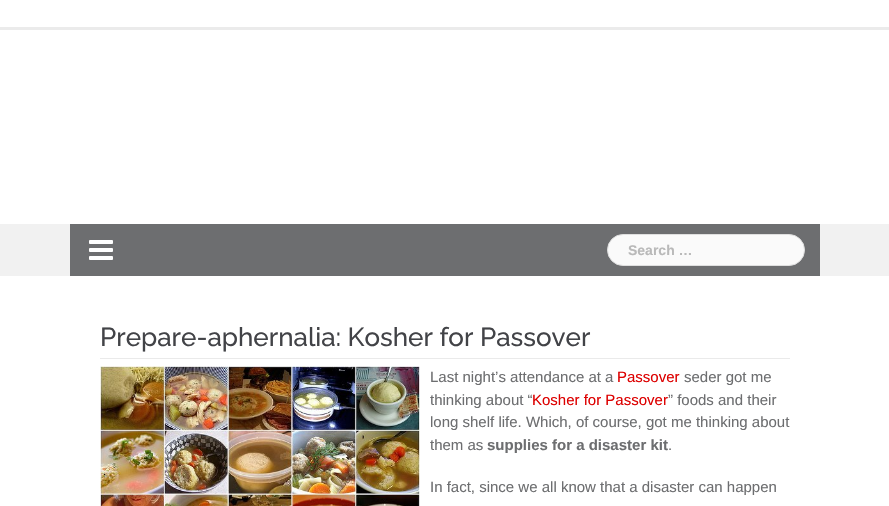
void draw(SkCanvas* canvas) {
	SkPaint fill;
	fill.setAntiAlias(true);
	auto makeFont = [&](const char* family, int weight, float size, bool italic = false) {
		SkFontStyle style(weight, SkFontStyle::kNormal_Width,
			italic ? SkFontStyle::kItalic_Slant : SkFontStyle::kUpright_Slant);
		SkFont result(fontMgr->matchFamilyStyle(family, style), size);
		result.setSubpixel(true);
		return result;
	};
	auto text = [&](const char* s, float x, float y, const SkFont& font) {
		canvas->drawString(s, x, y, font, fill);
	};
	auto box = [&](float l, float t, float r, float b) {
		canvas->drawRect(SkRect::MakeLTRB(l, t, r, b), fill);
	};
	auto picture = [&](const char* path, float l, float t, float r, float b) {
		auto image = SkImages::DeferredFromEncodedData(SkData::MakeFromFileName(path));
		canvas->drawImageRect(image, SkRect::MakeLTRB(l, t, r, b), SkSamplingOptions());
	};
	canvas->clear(0xFFFFFFFF);
	fill.setColor(0xFFEBEBEB);
	box(0, 27, 889, 30);
	fill.setColor(0xFFF1F1F1);
	box(0, 224, 889, 276);
	fill.setColor(0xFF6D6E70);
	box(70, 224, 820, 276);
	picture("image0.png", 89, 240, 113, 260);
	fill.setColor(0xFFFAFAFA);
	canvas->drawRoundRect(SkRect::MakeLTRB(607.5f, 234.5f, 804.5f, 265.5f), 15.5f, 15.5f, fill);
	fill.setStyle(SkPaint::kStroke_Style);
	fill.setStrokeWidth(1);
	fill.setColor(0xFFDFDFDF);
	canvas->drawRoundRect(SkRect::MakeLTRB(607.5f, 234.5f, 804.5f, 265.5f), 15.5f, 15.5f, fill);
	fill.setStyle(SkPaint::kFill_Style);
	fill.setColor(0xFFEAEAEA);
	box(100, 358, 790, 359);
	picture("image1.png", 100, 366, 420, 506);
	auto font1 = makeFont("Liberation Sans", 700, 14);
	fill.setColor(0xFFB9B9B9);
	text("Search …", 628, 255, font1);
	auto font2 = makeFont("Raleway", 500, 26);
	fill.setColor(0xFF424347);
	text("Prepare-aphernalia: Kosher for Passover", 100, 346, font2);
	auto font3 = makeFont("Liberation Sans", 400, 15);
	fill.setColor(0xFF6D6E70);
	text("Last night’s attendance at a", 430, 382, font3);
	fill.setColor(0xFFDD0000);
	text("Passover", 617, 382, font3);
	fill.setColor(0xFF6D6E70);
	text("seder got me", 684, 382, font3);
	text("thinking about “", 430, 405, font3);
	fill.setColor(0xFFDD0000);
	text("Kosher for Passover", 532, 405, font3);
	fill.setColor(0xFF6D6E70);
	text("” foods and their", 668, 405, font3);
	text("long shelf life. Which, of course, got me thinking about", 430, 427, font3);
	text("them as", 430, 450, font3);
	auto font4 = makeFont("Liberation Sans", 700, 15);
	text("supplies for a disaster kit", 487, 450, font4);
	text(".", 668, 450, font3);
	text("In fact, since we all know that a disaster can happen", 430, 492, font3);
}
